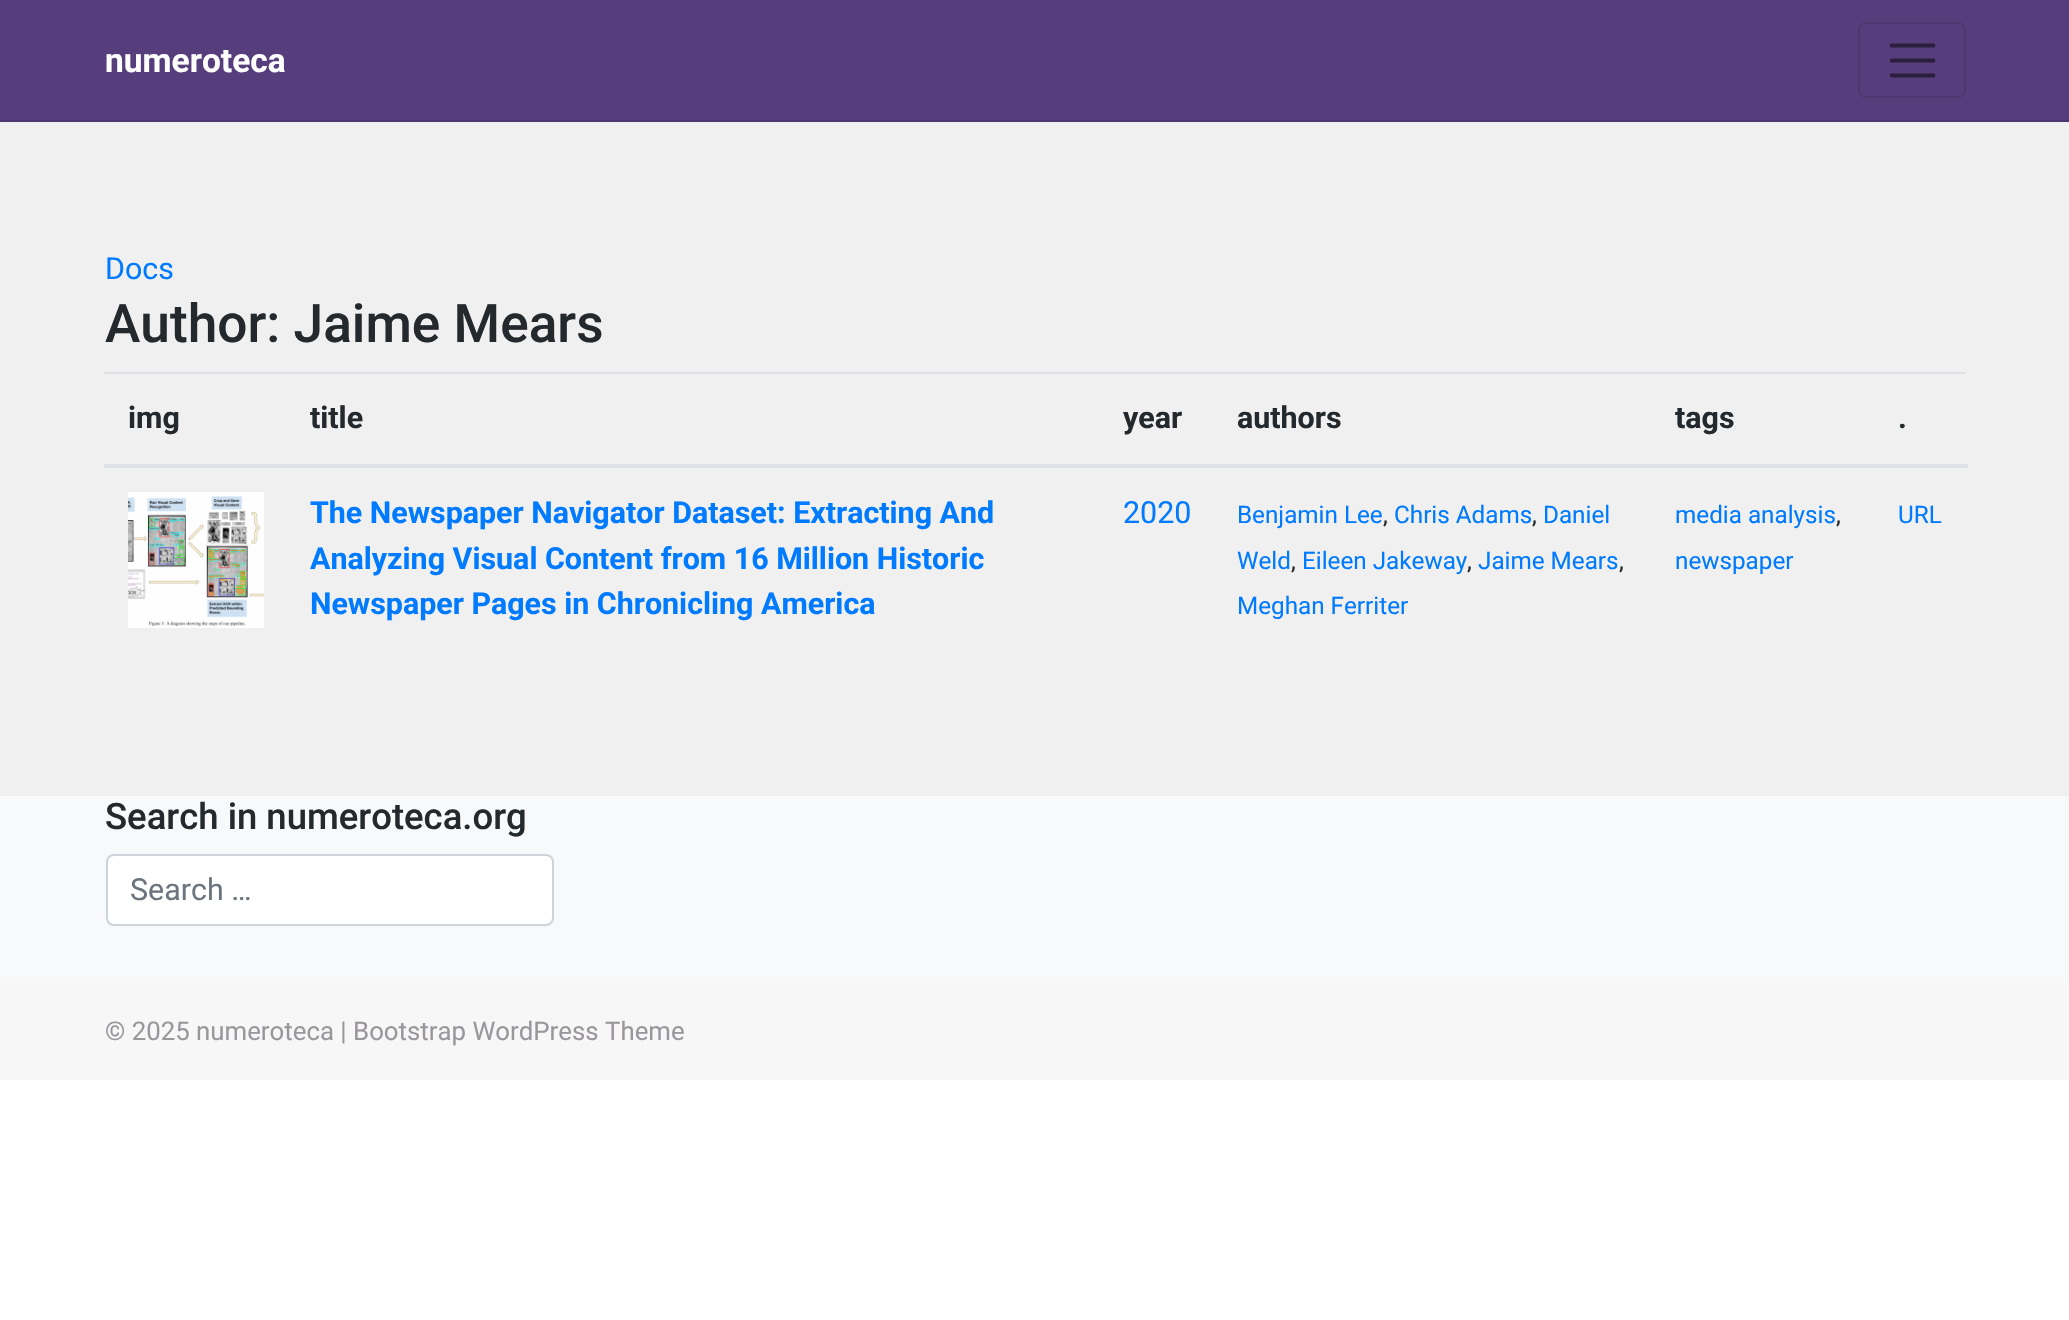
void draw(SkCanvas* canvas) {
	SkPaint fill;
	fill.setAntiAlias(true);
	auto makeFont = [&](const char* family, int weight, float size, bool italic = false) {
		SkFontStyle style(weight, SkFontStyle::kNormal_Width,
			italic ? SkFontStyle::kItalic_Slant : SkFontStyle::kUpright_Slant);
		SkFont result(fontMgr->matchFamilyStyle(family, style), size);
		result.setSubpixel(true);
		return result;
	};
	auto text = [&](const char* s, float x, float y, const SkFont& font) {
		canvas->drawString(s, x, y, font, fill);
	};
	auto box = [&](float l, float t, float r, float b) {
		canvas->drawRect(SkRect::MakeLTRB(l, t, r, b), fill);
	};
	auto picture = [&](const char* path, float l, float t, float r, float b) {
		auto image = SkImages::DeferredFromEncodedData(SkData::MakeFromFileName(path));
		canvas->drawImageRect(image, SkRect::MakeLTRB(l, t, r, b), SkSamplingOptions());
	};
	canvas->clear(0xFFFFFFFF);
	fill.setColor(0xFF563D7C);
	box(0, 0, 2069, 120);
	fill.setColor(0xFF4D3770);
	box(0, 120, 2069, 122);
	fill.setStyle(SkPaint::kStroke_Style);
	fill.setStrokeWidth(2);
	canvas->drawRoundRect(SkRect::MakeLTRB(1859, 23, 1965, 97), 7, 7, fill);
	fill.setStrokeWidth(3.8f);
	fill.setStrokeCap(SkPaint::kRound_Cap);
	fill.setColor(0xFF2B1F3E);
	canvas->drawPath(SkPathBuilder().moveTo(1891.5f, 45.5f).lineTo(1933.5f, 45.5f).moveTo(1891.5f, 60.5f).lineTo(1933.5f, 60.5f).moveTo(1891.5f, 75.5f).lineTo(1933.5f, 75.5f).detach(), fill);
	fill.setStyle(SkPaint::kFill_Style);
	fill.setColor(0xFFF0F0F0);
	box(0, 122, 2069, 796);
	fill.setColor(0xFFDEE2E6);
	box(104, 372, 1966, 374);
	box(104, 464, 1968, 468);
	picture("image0.png", 128, 492, 264, 628);
	fill.setColor(0xFFF8F9FA);
	box(0, 796, 2069, 982);
	fill.setColor(0xFFFFFFFF);
	canvas->drawRoundRect(SkRect::MakeLTRB(107, 855, 553, 925), 7, 7, fill);
	fill.setStyle(SkPaint::kStroke_Style);
	fill.setStrokeWidth(2);
	fill.setStrokeCap(SkPaint::kButt_Cap);
	fill.setColor(0xFFCED4DA);
	canvas->drawRoundRect(SkRect::MakeLTRB(107, 855, 553, 925), 7, 7, fill);
	fill.setStyle(SkPaint::kFill_Style);
	fill.setColor(0xFFF7F7F7);
	box(0, 982, 2069, 1080);
	auto font1 = makeFont("Roboto", 700, 33.5f);
	fill.setColor(0xFFFFFFFF);
	text("numeroteca", 105, 72, font1);
	auto font2 = makeFont("Roboto", 400, 30.4f);
	fill.setColor(0xFF007BFF);
	text("Docs", 105, 279, font2);
	auto font3 = makeFont("Roboto", 500, 53.25f);
	fill.setColor(0xFF24292E);
	text("Author: Jaime Mears", 105, 342, font3);
	auto font4 = makeFont("Roboto", 700, 30.4f);
	text("img", 128, 428, font4);
	text("title", 310, 428, font4);
	text("year", 1123, 428, font4);
	text("authors", 1237, 428, font4);
	text("tags", 1675, 428, font4);
	text(".", 1898, 428, font4);
	fill.setColor(0xFF007BFF);
	text("The Newspaper Navigator Dataset: Extracting And", 310, 523, font4);
	text("Analyzing Visual Content from 16 Million Historic", 310, 569, font4);
	text("Newspaper Pages in Chronicling America", 310, 614, font4);
	text("2020", 1123, 523, font2);
	auto font5 = makeFont("Roboto", 400, 24.25f);
	text("Benjamin Lee", 1237, 523, font5);
	fill.setColor(0xFF24292E);
	text(",", 1383, 523, font5);
	fill.setColor(0xFF007BFF);
	text("Chris Adams", 1394, 523, font5);
	fill.setColor(0xFF24292E);
	text(",", 1532, 523, font5);
	fill.setColor(0xFF007BFF);
	text("Daniel", 1543, 523, font5);
	text("Weld", 1237, 569, font5);
	fill.setColor(0xFF24292E);
	text(",", 1291, 569, font5);
	fill.setColor(0xFF007BFF);
	text("Eileen Jakeway", 1302, 569, font5);
	fill.setColor(0xFF24292E);
	text(",", 1467, 569, font5);
	fill.setColor(0xFF007BFF);
	text("Jaime Mears", 1478, 569, font5);
	fill.setColor(0xFF24292E);
	text(",", 1619, 569, font5);
	fill.setColor(0xFF007BFF);
	text("Meghan Ferriter", 1237, 614, font5);
	text("media analysis", 1675, 523, font5);
	fill.setColor(0xFF24292E);
	text(",", 1836, 523, font5);
	fill.setColor(0xFF007BFF);
	text("newspaper", 1675, 569, font5);
	text("URL", 1898, 523, font5);
	auto font6 = makeFont("Roboto", 500, 36.5f);
	fill.setColor(0xFF24292E);
	text("Search in numeroteca.org", 105, 829, font6);
	fill.setColor(0xFF6C757D);
	text("Search …", 130, 900, font2);
	auto font7 = makeFont("Roboto", 400, 25.8f);
	fill.setColor(0xFF99979C);
	text("© 2025 numeroteca | Bootstrap WordPress Theme", 105, 1040, font7);
}
